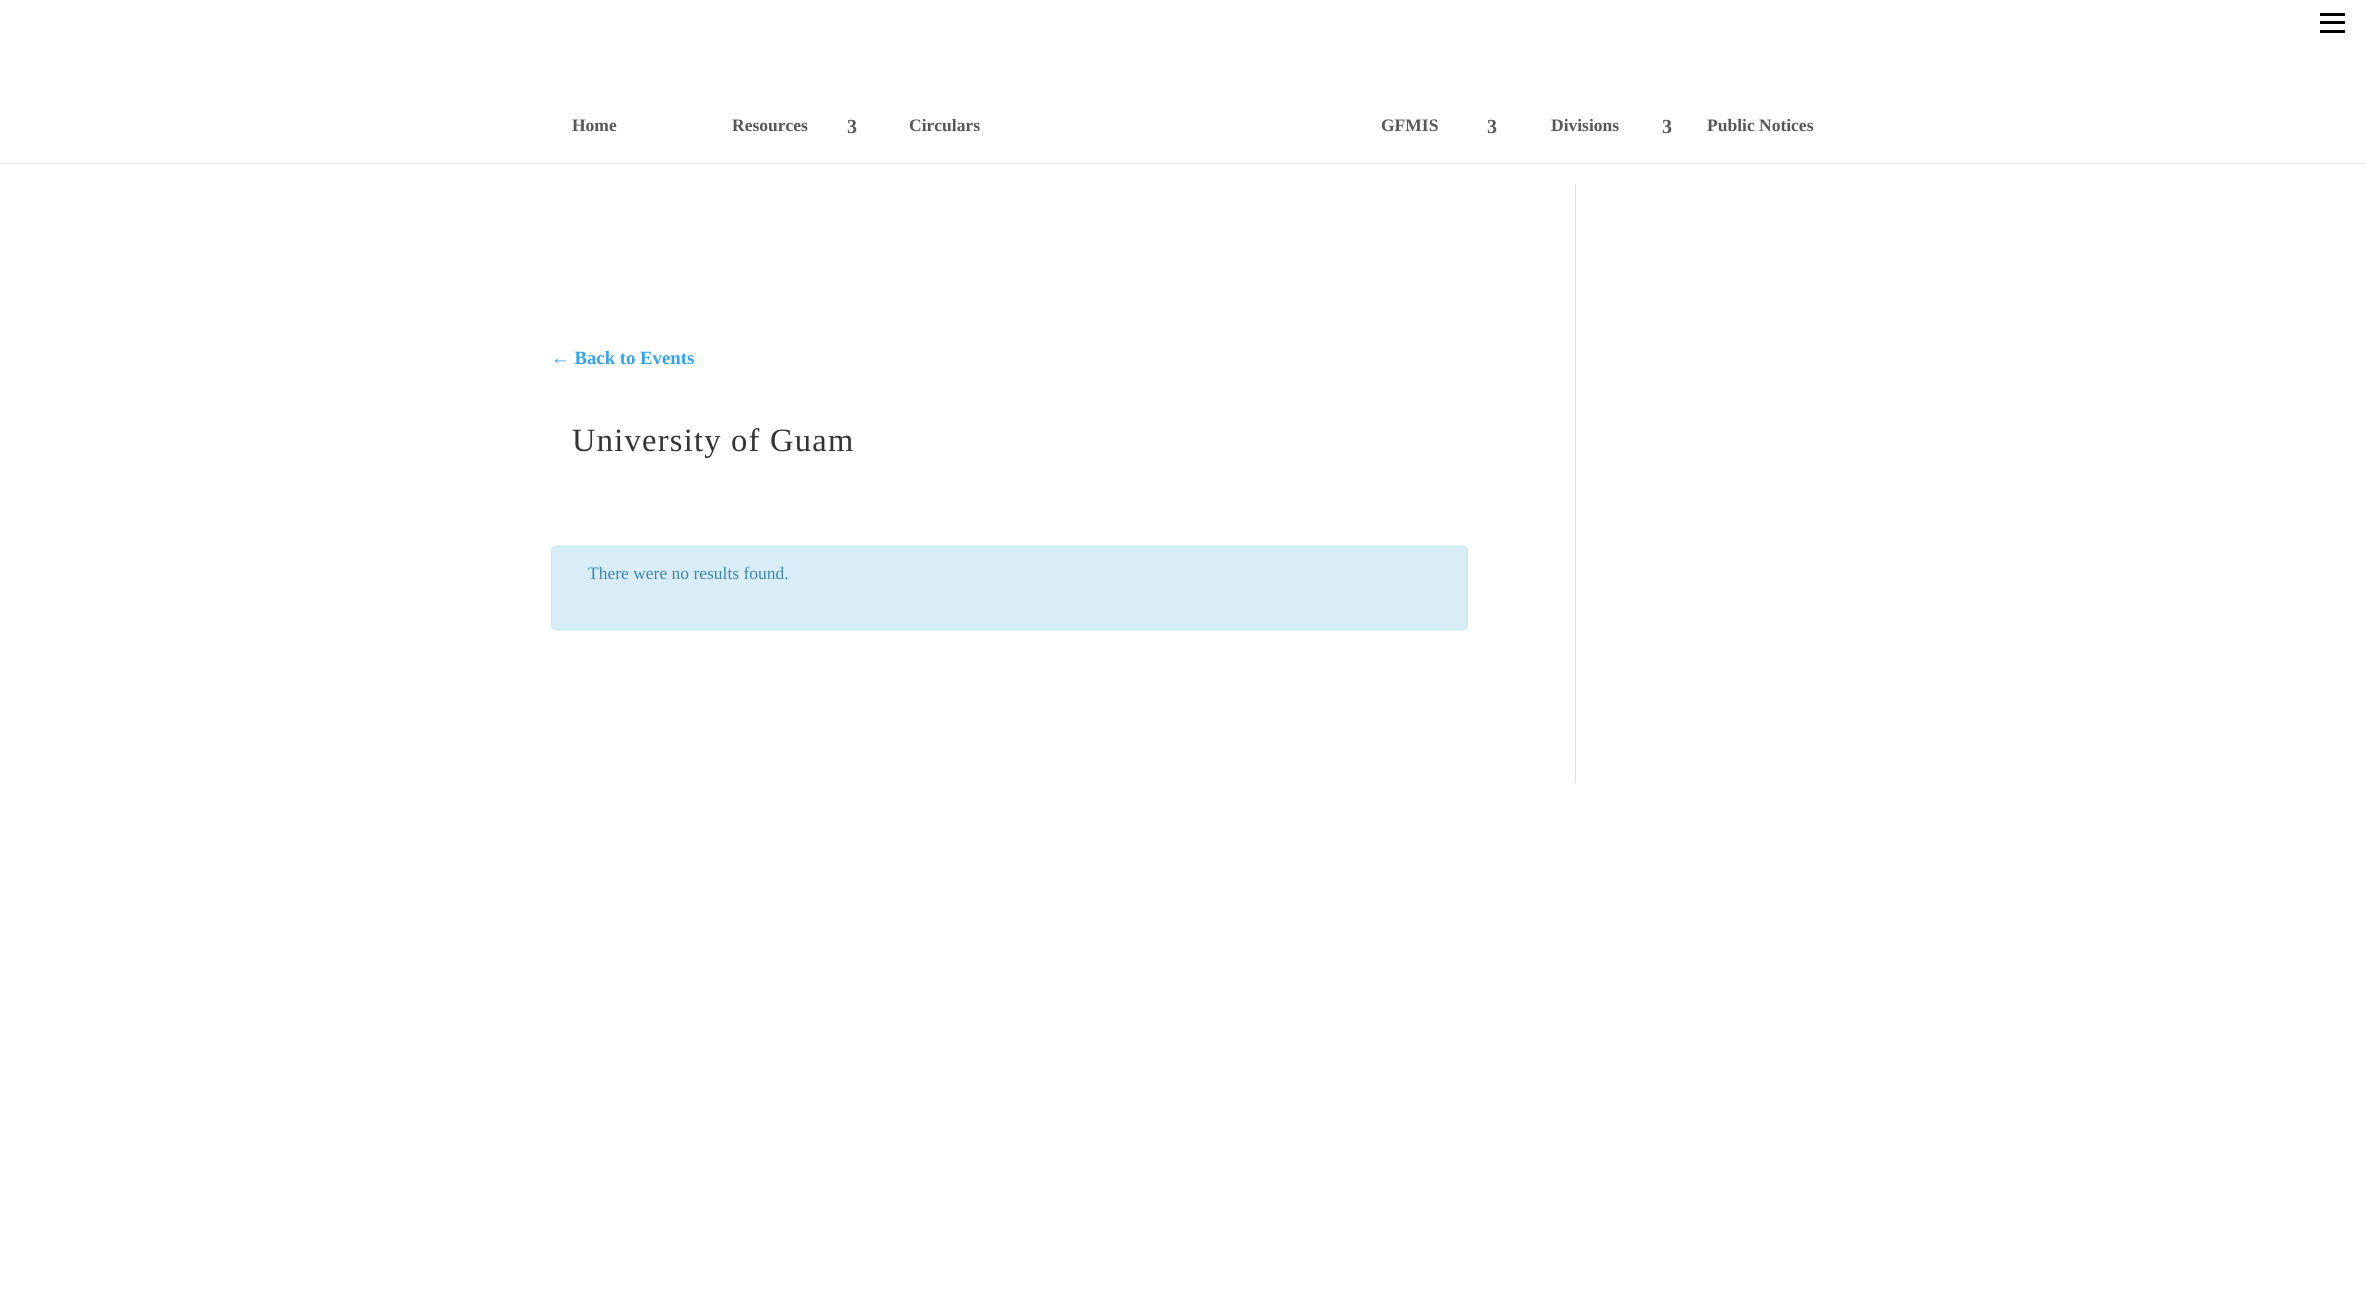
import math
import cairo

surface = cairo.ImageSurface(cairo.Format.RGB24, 2365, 1291)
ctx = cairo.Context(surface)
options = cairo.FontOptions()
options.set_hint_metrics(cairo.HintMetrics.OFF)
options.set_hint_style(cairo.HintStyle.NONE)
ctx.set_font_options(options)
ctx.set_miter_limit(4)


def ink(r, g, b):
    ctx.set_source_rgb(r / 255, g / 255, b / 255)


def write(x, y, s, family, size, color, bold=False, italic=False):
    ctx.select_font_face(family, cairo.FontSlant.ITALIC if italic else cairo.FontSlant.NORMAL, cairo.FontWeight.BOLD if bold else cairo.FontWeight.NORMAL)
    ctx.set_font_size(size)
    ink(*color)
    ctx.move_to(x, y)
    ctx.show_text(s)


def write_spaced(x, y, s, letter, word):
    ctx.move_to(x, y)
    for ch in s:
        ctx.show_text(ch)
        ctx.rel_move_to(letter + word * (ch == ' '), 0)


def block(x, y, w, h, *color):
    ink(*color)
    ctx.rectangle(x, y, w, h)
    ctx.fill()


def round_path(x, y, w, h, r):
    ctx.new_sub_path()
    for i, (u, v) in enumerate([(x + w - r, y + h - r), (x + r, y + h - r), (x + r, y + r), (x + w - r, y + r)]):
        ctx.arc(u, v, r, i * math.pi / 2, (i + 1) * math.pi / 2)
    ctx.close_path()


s1 = dict(family="Liberation Serif", size=17.5, color=(87, 87, 87), bold=True)
s2 = dict(family="Liberation Serif", size=20, color=(87, 87, 87), bold=True)
s3 = dict(family="Liberation Serif", size=18.75, color=(46, 163, 242), bold=True)
s4 = dict(family="Liberation Serif", size=17.5, color=(58, 135, 173))

ink(255, 255, 255)
ctx.paint()
block(2320, 13, 25, 3, 0, 0, 0)
block(2320, 21, 25, 3, 0, 0, 0)
block(2320, 30, 25, 3, 0, 0, 0)
block(0, 163, 2365, 1, 230, 230, 230)
write(572, 131, "Home", **s1)
write(732, 131, "Resources", **s1)
write(847, 133, "3", **s2)
write(909, 131, "Circulars", **s1)
write(1381, 131, "GFMIS", **s1)
write(1487, 133, "3", **s2)
write(1551, 131, "Divisions", **s1)
write(1662, 133, "3", **s2)
write(1707, 131, "Public Notices", **s1)
write(551, 364, "← Back to Events", **s3)
ctx.select_font_face("Liberation Serif")
ctx.set_font_size(32.5)
ink(51, 51, 51)
write_spaced(572, 451, "University of Guam", 1.25, 0)
ink(217, 237, 247)
round_path(551.5, 546.5, 916, 83, 4.5)
ctx.fill_preserve()
ink(188, 232, 241)
ctx.set_line_width(1)
ctx.stroke()
write(588, 579, "There were no results found.", **s4)
block(1575, 184, 1, 599, 226, 226, 226)
surface.write_to_png("screenshot.png")
